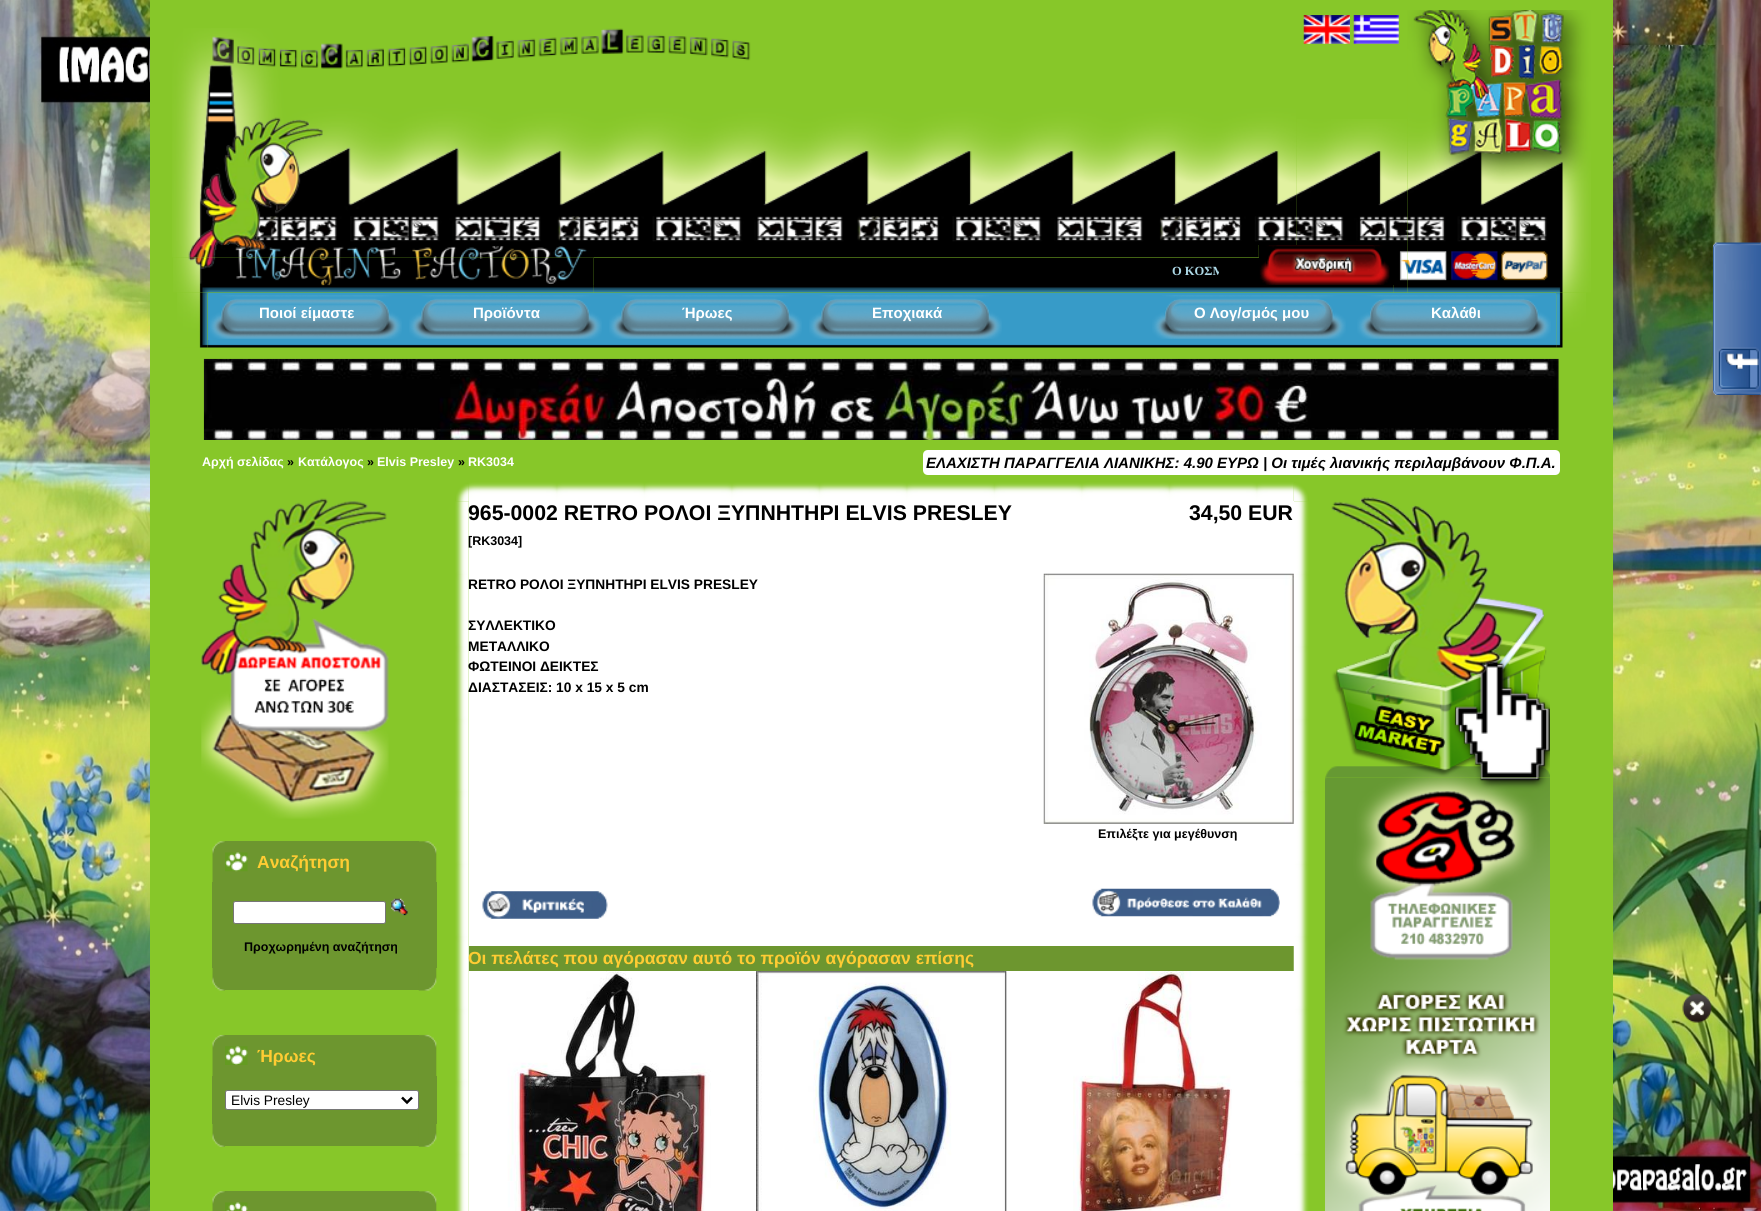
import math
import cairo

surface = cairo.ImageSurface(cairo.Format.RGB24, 1761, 1211)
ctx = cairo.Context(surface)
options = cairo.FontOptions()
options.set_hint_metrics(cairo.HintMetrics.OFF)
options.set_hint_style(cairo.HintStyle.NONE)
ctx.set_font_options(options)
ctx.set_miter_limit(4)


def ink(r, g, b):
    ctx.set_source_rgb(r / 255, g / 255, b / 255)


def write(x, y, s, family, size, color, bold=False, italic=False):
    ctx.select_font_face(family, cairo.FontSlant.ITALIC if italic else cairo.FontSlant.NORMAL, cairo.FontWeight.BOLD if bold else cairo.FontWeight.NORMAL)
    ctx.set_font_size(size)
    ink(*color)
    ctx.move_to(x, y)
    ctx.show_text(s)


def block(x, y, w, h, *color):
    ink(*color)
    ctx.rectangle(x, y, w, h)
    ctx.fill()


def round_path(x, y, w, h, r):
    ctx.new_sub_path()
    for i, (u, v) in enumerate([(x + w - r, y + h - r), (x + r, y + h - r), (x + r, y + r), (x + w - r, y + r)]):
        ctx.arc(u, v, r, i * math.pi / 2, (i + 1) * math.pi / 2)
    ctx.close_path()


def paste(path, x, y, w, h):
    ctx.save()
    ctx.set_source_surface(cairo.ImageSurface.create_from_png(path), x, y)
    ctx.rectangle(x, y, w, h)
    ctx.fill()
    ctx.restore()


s1 = dict(family="Liberation Serif", size=12.5, color=(173, 216, 230), bold=True)
s2 = dict(family="Liberation Sans", size=15, color=(255, 255, 255), bold=True)
s3 = dict(family="Liberation Sans", size=12.5, color=(255, 255, 255), bold=True)
s4 = dict(family="Liberation Sans", size=12.5, color=(0, 0, 0), bold=True)
s5 = dict(family="Liberation Sans", size=15, color=(0, 0, 0), bold=True, italic=True)
s6 = dict(family="Liberation Sans", size=17.5, color=(255, 204, 51), bold=True)
s7 = dict(family="Liberation Sans", size=13.75, color=(0, 0, 0))
s8 = dict(family="Liberation Sans", size=21.25, color=(0, 0, 0), bold=True)
s9 = dict(family="Liberation Sans", size=13.75, color=(0, 0, 0), bold=True)

ink(255, 255, 255)
ctx.paint()
paste("pic1.png", 0, 0, 1761, 1211)
block(150, 0, 1463, 1211, 135, 199, 41)
paste("pic2.png", 172, 28, 1125, 217)
paste("pic3.png", 1303, 15, 47, 29)
paste("pic4.png", 1353, 15, 46, 29)
paste("pic5.png", 1407, 10, 184, 283)
paste("pic6.png", 1296, 119, 112, 126)
paste("pic7.png", 172, 245, 1087, 13)
block(1390, 245, 4, 40, 0, 0, 0)
block(594, 258, 665, 27, 0, 0, 0)
paste("pic8.png", 1258, 245, 132, 40)
paste("pic9.png", 1393, 245, 15, 48)
paste("pic10.png", 173, 257, 421, 36)
ctx.save()
ctx.rectangle(594, 265, 625, 13)
ctx.clip()
write(1172, 275, "Ο ΚΟΣΜ", **s1)
ctx.restore()
paste("pic11.png", 593, 285, 801, 8)
paste("pic12.png", 177, 292, 31, 56)
block(208, 293, 1348, 47, 55, 155, 200)
paste("pic13.png", 209, 295, 193, 44)
write(259, 318, "Ποιοί είμαστε", **s2)
paste("pic14.png", 409, 295, 193, 44)
write(473, 318, "Προϊόντα", **s2)
paste("pic15.png", 609, 295, 193, 44)
write(682, 318, "Ήρωες", **s2)
paste("pic16.png", 809, 295, 193, 44)
write(872, 318, "Εποχιακά", **s2)
paste("pic17.png", 1152, 295, 194, 44)
write(1194, 318, "Ο Λογ/σμός μου", **s2)
paste("pic18.png", 1357, 295, 194, 44)
write(1431, 318, "Καλάθι", **s2)
paste("pic19.png", 1556, 292, 30, 56)
paste("pic20.png", 207, 340, 1350, 8)
paste("pic21.png", 203, 358, 1356, 82)
write(202, 466, "Αρχή σελίδας", **s3)
write(287, 466, "»", **s4)
write(298, 466, "Κατάλογος", **s3)
write(367, 466, "»", **s4)
write(377, 466, "Elvis Presley", **s3)
write(458, 466, "»", **s4)
write(468, 466, "RK3034", **s3)
ctx.new_path()
ctx.move_to(928, 450)
ctx.line_to(1259, 450)
ctx.line_to(1259, 475)
ctx.line_to(928, 475)
ctx.curve_to(925, 475, 923, 473, 923, 470)
ctx.line_to(923, 455)
ctx.curve_to(923, 452, 925, 450, 928, 450)
ctx.close_path()
ctx.fill()
ctx.new_path()
ctx.move_to(1259, 450)
ctx.line_to(1555, 450)
ctx.curve_to(1558, 450, 1560, 452, 1560, 455)
ctx.line_to(1560, 470)
ctx.curve_to(1560, 473, 1558, 475, 1555, 475)
ctx.line_to(1259, 475)
ctx.close_path()
ctx.fill()
write(926, 468, "ΕΛΑΧΙΣΤΗ ΠΑΡΑΓΓΕΛΙΑ ΛΙΑΝΙΚΗΣ: 4.90 ΕΥΡΩ | Οι τιμές λιανικής περιλαμβάνουν Φ.Π.Α.", **s5)
paste("pic22.png", 201, 498, 188, 321)
paste("pic23.png", 212, 841, 13, 41)
paste("pic24.png", 419, 841, 18, 41)
block(225, 841, 194, 149, 109, 150, 47)
paste("pic25.png", 225, 852, 23, 20)
write(257, 868, "Αναζήτηση", **s6)
block(212, 882, 13, 86, 109, 150, 47)
ink(255, 255, 255)
round_path(233.5, 901.5, 152, 22, 2)
ctx.fill_preserve()
ink(118, 118, 118)
ctx.set_line_width(1)
ctx.stroke()
paste("pic26.png", 391, 898, 17, 18)
write(244, 951, "Προχωρημένη αναζήτηση", **s4)
block(419, 882, 18, 86, 109, 150, 47)
paste("pic27.png", 212, 968, 13, 23)
paste("pic28.png", 418, 968, 19, 23)
paste("pic29.png", 212, 1034, 13, 42)
paste("pic30.png", 419, 1034, 18, 42)
block(225, 1035, 194, 41, 109, 150, 47)
paste("pic31.png", 225, 1046, 23, 19)
write(257, 1062, "Ήρωες", **s6)
block(212, 1076, 225, 48, 109, 150, 47)
ink(255, 255, 255)
round_path(225.5, 1090.5, 193, 19, 2)
ctx.fill_preserve()
ink(118, 118, 118)
ctx.stroke()
ctx.new_path()
ctx.move_to(402, 1097.5)
ctx.line_to(407, 1102.5)
ctx.line_to(412, 1097.5)
ink(0, 0, 0)
ctx.set_line_width(2.5)
ctx.stroke()
write(231, 1105, "Elvis Presley", **s7)
paste("pic32.png", 212, 1124, 13, 23)
block(225, 1124, 194, 22, 109, 150, 47)
paste("pic33.png", 418, 1124, 19, 23)
paste("pic34.png", 212, 1191, 13, 20)
paste("pic35.png", 419, 1191, 18, 20)
block(225, 1191, 194, 20, 109, 150, 47)
paste("pic36.png", 225, 1202, 23, 9)
paste("pic38.png", 468, 482, 826, 20)
paste("pic40.png", 455, 501, 14, 710)
paste("pic37.png", 456, 484, 13, 18)
block(469, 501, 825, 710, 255, 255, 255)
block(469, 946, 825, 25, 109, 150, 47)
paste("pic47.png", 1293, 501, 16, 710)
paste("pic39.png", 1293, 483, 15, 19)
write(468, 520, "965-0002 RETRO ΡΟΛΟΙ ΞΥΠΝΗΤΗΡΙ ELVIS PRESLEY", **s8)
write(468, 545, "[RK3034]", **s4)
write(1189, 520, "34,50 EUR", **s8)
write(468, 589, "RETRO ΡΟΛΟΙ ΞΥΠΝΗΤΗΡΙ ELVIS PRESLEY", **s9)
write(468, 630, "ΣΥΛΛΕΚΤΙΚΟ", **s9)
write(468, 651, "ΜΕΤΑΛΛΙΚΟ", **s9)
write(468, 671, "ΦΩΤΕΙΝΟΙ ΔΕΙΚΤΕΣ", **s9)
write(468, 692, "ΔΙΑΣΤΑΣΕΙΣ: 10 x 15 x 5 cm", **s9)
paste("pic41.png", 1043, 573, 251, 251)
write(1098, 838, "Επιλέξτε για μεγέθυνση", **s4)
paste("pic42.png", 482, 891, 126, 28)
paste("pic43.png", 1092, 888, 188, 29)
write(468, 964, "Οι πελάτες που αγόρασαν αυτό το προϊόν αγόρασαν επίσης", **s6)
paste("pic44.png", 468, 971, 243, 240)
paste("pic45.png", 756, 971, 251, 240)
paste("pic46.png", 1073, 971, 159, 240)
paste("pic48.png", 1325, 497, 225, 281)
paste("pic49.png", 1325, 777, 225, 198)
paste("pic50.png", 1325, 975, 225, 236)
paste("pic51.png", 1682, 993, 30, 30)
paste("pic52.png", 1713, 242, 48, 153)
surface.write_to_png("screenshot.png")
